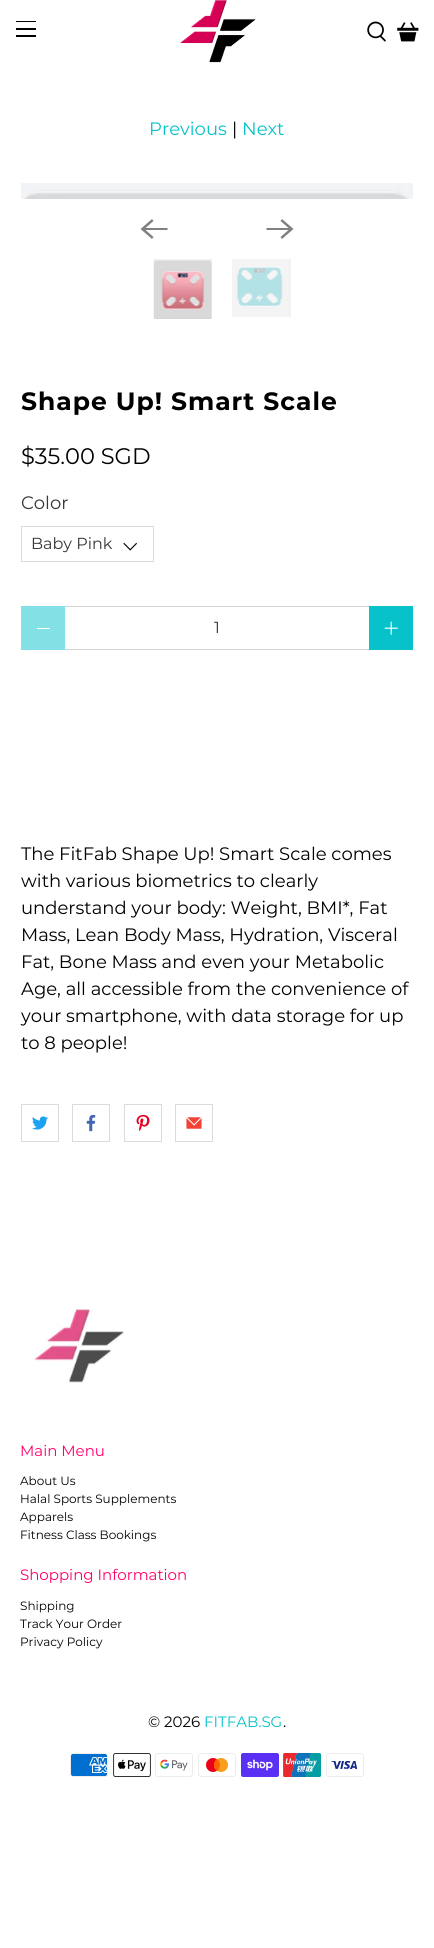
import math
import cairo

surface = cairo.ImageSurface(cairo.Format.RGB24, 434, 1948)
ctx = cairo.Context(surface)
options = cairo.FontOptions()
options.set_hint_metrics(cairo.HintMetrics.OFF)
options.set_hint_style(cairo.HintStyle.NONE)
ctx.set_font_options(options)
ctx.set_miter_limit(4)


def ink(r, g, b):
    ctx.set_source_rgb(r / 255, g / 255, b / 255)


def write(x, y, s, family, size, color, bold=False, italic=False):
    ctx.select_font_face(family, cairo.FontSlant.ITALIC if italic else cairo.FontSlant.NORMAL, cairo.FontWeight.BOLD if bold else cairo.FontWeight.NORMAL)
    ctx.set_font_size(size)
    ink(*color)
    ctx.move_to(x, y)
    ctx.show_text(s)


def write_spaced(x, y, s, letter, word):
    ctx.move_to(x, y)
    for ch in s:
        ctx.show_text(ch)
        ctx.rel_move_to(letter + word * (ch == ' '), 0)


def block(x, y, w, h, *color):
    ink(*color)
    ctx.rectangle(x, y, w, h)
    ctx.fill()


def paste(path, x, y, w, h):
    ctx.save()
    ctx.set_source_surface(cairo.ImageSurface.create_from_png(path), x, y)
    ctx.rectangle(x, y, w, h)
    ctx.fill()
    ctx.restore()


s1 = dict(family="Montserrat", size=18, color=(7, 194, 202))
s2 = dict(family="Montserrat", size=18, color=(0, 0, 0))
s3 = dict(family="Montserrat", size=22.5, color=(0, 0, 0))
s4 = dict(family="Montserrat", size=18, color=(54, 54, 54))
s5 = dict(family="Montserrat", size=16, color=(54, 54, 54))
s6 = dict(family="Montserrat", size=15, color=(255, 0, 109))
s7 = dict(family="Montserrat", size=12, color=(0, 0, 0))
s8 = dict(family="Montserrat", size=15, color=(0, 0, 0))
s9 = dict(family="Montserrat", size=15, color=(7, 194, 202))

ink(255, 255, 255)
ctx.paint()
block(16, 21, 20, 1, 0, 0, 0)
block(16, 28, 20, 2, 0, 0, 0)
block(16, 35, 20, 2, 0, 0, 0)
paste("pic1.png", 180, 0, 76, 63)
paste("pic2.png", 367, 21, 19, 21)
paste("pic3.png", 397, 22, 22, 20)
write(149, 135, "Previous", **s1)
write(232, 135, "|", **s2)
write(242, 135, "Next", **s1)
paste("pic4.png", 21, 183, 392, 16)
ink(128, 128, 128)
ctx.new_path()
ctx.move_to(167.5, 228)
ctx.line_to(145.5, 228)
ctx.line_to(153.5, 221)
ctx.line_to(152, 219)
ctx.line_to(140.5, 229)
ctx.line_to(152, 239)
ctx.line_to(153.5, 237)
ctx.line_to(145.5, 230)
ctx.line_to(167.5, 230)
ctx.close_path()
ctx.fill()
ctx.new_path()
ctx.move_to(266.5, 230)
ctx.line_to(288.5, 230)
ctx.line_to(280.5, 237)
ctx.line_to(282, 239)
ctx.line_to(293.5, 229)
ctx.line_to(282, 219)
ctx.line_to(280.5, 221)
ctx.line_to(288.5, 228)
ctx.line_to(266.5, 228)
ctx.close_path()
ctx.fill()
paste("pic5.png", 153, 259, 59, 60)
paste("pic6.png", 232, 259, 59, 58)
ctx.select_font_face("Montserrat", cairo.FontSlant.NORMAL, cairo.FontWeight.BOLD)
ctx.set_font_size(25)
ink(0, 0, 0)
write_spaced(21, 410, "Shape Up! Smart Scale", 1, 0)
write(21, 464, "$35.00 SGD", **s3)
write(21, 509, "Color", **s4)
ctx.rectangle(21.5, 526.5, 132, 35)
ink(219, 219, 219)
ctx.set_line_width(1)
ctx.stroke()
write(31, 549, "Baby Pink", **s5)
paste("pic7.png", 123, 542, 14, 9)
block(21, 606, 44, 44, 131, 225, 229)
block(37, 628, 13, 1, 255, 255, 255)
block(65, 606, 304, 1, 211, 211, 211)
block(65, 649, 304, 1, 211, 211, 211)
write(214, 633, "1", **s5)
block(369, 606, 44, 44, 7, 194, 202)
paste("pic8.png", 384, 621, 14, 14)
write(21, 860, "The FitFab Shape Up! Smart Scale comes", **s2)
write(21, 887, "with various biometrics to clearly", **s2)
write(21, 914, "understand your body: Weight, BMI*, Fat", **s2)
write(21, 941, "Mass, Lean Body Mass, Hydration, Visceral", **s2)
write(21, 968, "Fat, Bone Mass and even your Metabolic", **s2)
write(21, 995, "Age, all accessible from the convenience of", **s2)
write(21, 1022, "your smartphone, with data storage for up", **s2)
write(21, 1049, "to 8 people!", **s2)
ctx.rectangle(21.5, 1104.5, 37, 37)
ink(219, 219, 219)
ctx.stroke()
paste("pic9.png", 32, 1116, 16, 14)
ctx.rectangle(72.5, 1104.5, 37, 37)
ctx.stroke()
paste("pic10.png", 86, 1114, 10, 18)
ctx.rectangle(124.5, 1104.5, 37, 37)
ctx.stroke()
paste("pic11.png", 136, 1114, 14, 17)
ctx.rectangle(175.5, 1104.5, 37, 37)
ctx.stroke()
paste("pic12.png", 186, 1117, 16, 12)
paste("pic13.png", 34, 1309, 90, 74)
write(20, 1456, "Main Menu", **s6)
write(20, 1485, "About Us", **s7)
write(20, 1503, "Halal Sports Supplements", **s7)
write(20, 1521, "Apparels", **s7)
write(20, 1539, "Fitness Class Bookings", **s7)
write(20, 1580, "Shopping Information", **s6)
write(20, 1610, "Shipping", **s7)
write(20, 1628, "Track Your Order", **s7)
write(20, 1646, "Privacy Policy", **s7)
write(148, 1727, "© 2026", **s8)
write(204, 1727, "FITFAB.SG", **s9)
write(283, 1727, ".", **s8)
paste("pic14.png", 70, 1753, 38, 24)
paste("pic15.png", 113, 1753, 38, 24)
paste("pic16.png", 155, 1753, 38, 24)
paste("pic17.png", 198, 1753, 38, 24)
paste("pic18.png", 241, 1753, 38, 24)
paste("pic19.png", 283, 1753, 38, 24)
paste("pic20.png", 326, 1753, 38, 24)
surface.write_to_png("screenshot.png")
